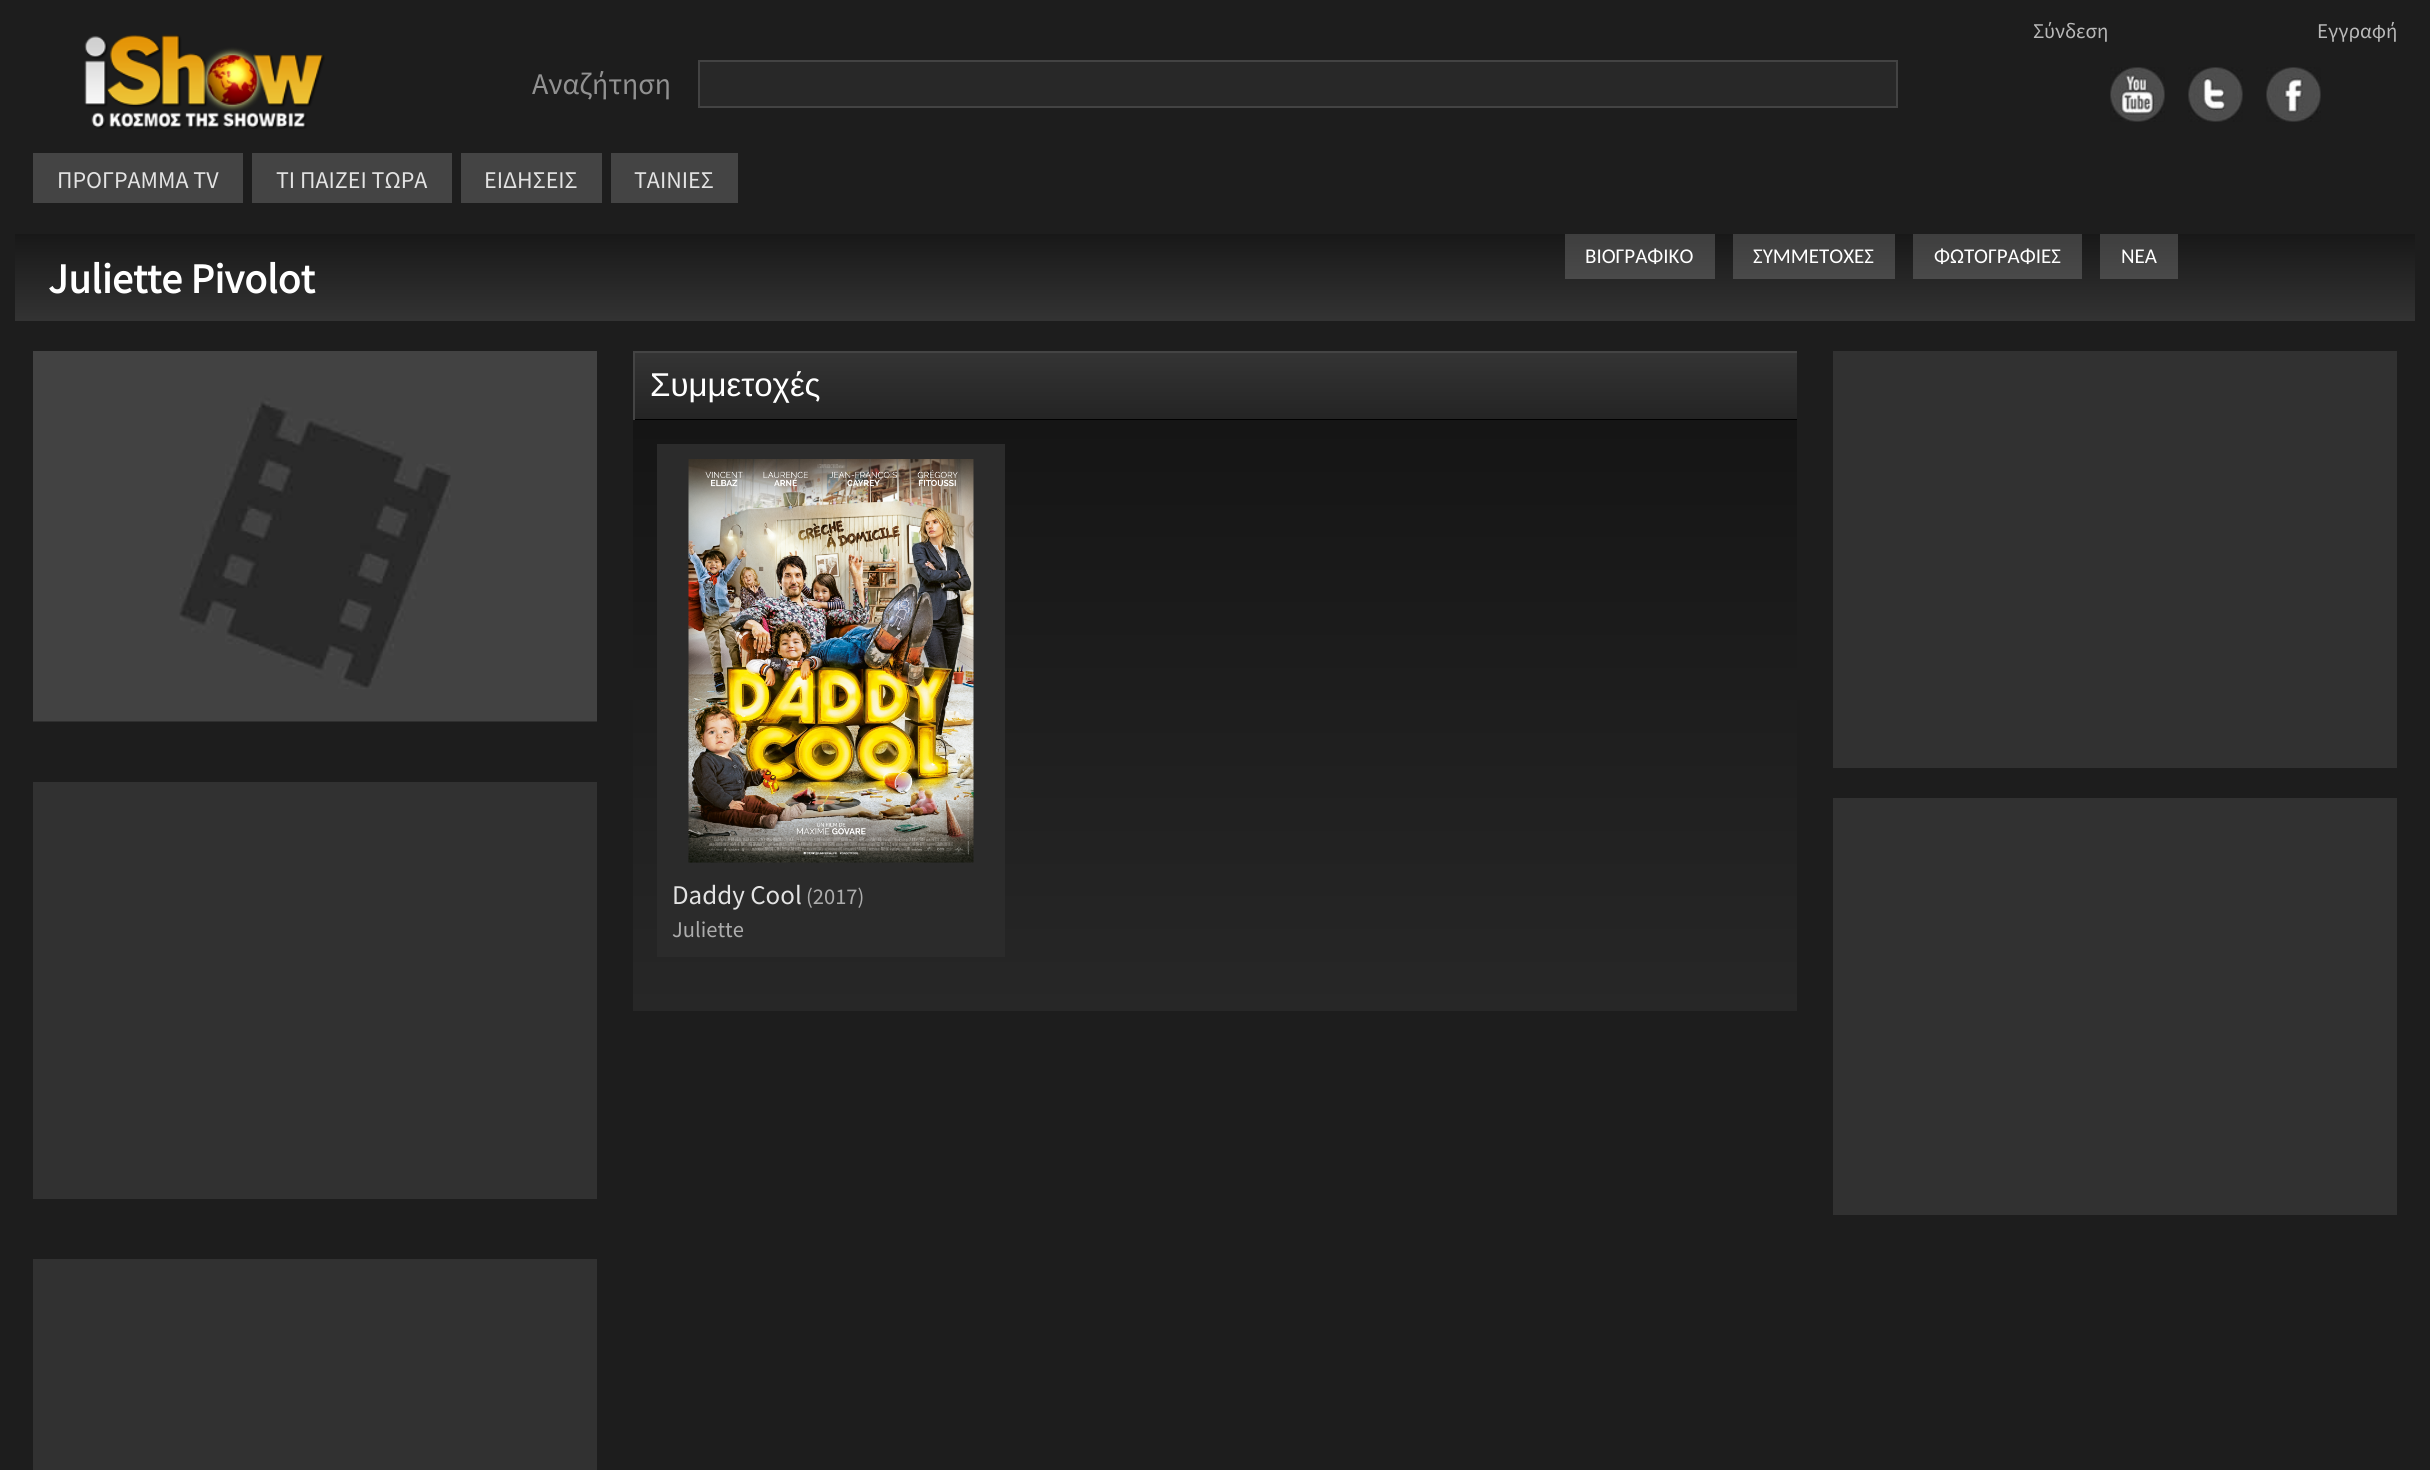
import math
import cairo

surface = cairo.ImageSurface(cairo.Format.RGB24, 2430, 1470)
ctx = cairo.Context(surface)
options = cairo.FontOptions()
options.set_hint_metrics(cairo.HintMetrics.OFF)
options.set_hint_style(cairo.HintStyle.NONE)
ctx.set_font_options(options)
ctx.set_miter_limit(4)


def ink(r, g, b):
    ctx.set_source_rgb(r / 255, g / 255, b / 255)


def write(x, y, s, family, size, color, bold=False, italic=False):
    ctx.select_font_face(family, cairo.FontSlant.ITALIC if italic else cairo.FontSlant.NORMAL, cairo.FontWeight.BOLD if bold else cairo.FontWeight.NORMAL)
    ctx.set_font_size(size)
    ink(*color)
    ctx.move_to(x, y)
    ctx.show_text(s)


def block(x, y, w, h, *color):
    ink(*color)
    ctx.rectangle(x, y, w, h)
    ctx.fill()


def paste(path, x, y, w, h):
    ctx.save()
    ctx.set_source_surface(cairo.ImageSurface.create_from_png(path), x, y)
    ctx.rectangle(x, y, w, h)
    ctx.fill()
    ctx.restore()


s1 = dict(family="Source Sans Pro", size=21, color=(185, 185, 185))
s2 = dict(family="Source Sans Pro", size=30, color=(146, 146, 146))
s3 = dict(family="Source Sans Pro", size=24, color=(227, 227, 227))
s4 = dict(family="Carlito", size=21, color=(255, 255, 255))
s5 = dict(family="Source Sans Pro", size=42, color=(255, 255, 255), bold=True)
s6 = dict(family="Liberation Sans", size=33, color=(255, 255, 255))
s7 = dict(family="Source Sans Pro", size=27, color=(227, 227, 227))
s8 = dict(family="Source Sans Pro", size=22.5, color=(173, 173, 173))

ink(29, 29, 29)
ctx.paint()
write(2033, 38, "Σύνδεση", **s1)
write(2317, 38, "Εγγραφή", **s1)
paste("pic1.png", 2110, 67, 55, 55)
paste("pic2.png", 2188, 67, 55, 55)
paste("pic3.png", 2266, 67, 55, 55)
paste("pic4.png", 84, 34, 241, 95)
write(532, 94, "Αναζήτηση", **s2)
ink(40, 40, 40)
ctx.rectangle(699, 61, 1198, 46)
ctx.fill_preserve()
ink(67, 67, 67)
ctx.stroke()
block(33, 153, 210, 50, 68, 68, 68)
write(57, 188, "ΠΡΟΓΡΑΜΜΑ TV", **s3)
block(252, 153, 200, 50, 68, 68, 68)
write(276, 188, "ΤΙ ΠΑΙΖΕΙ ΤΩΡΑ", **s3)
block(461, 153, 141, 50, 68, 68, 68)
write(484, 188, "ΕΙΔΗΣΕΙΣ", **s3)
block(611, 153, 127, 50, 68, 68, 68)
write(634, 188, "ΤΑΙΝΙΕΣ", **s3)
gradient = cairo.LinearGradient(1215, 234, 1215, 321)
gradient.add_color_stop_rgba(0, 0.094, 0.094, 0.094, 1)
gradient.add_color_stop_rgba(1, 0.2, 0.2, 0.2, 1)
ctx.set_source(gradient)
ctx.rectangle(15, 234, 2400, 87)
ctx.fill()
gradient = cairo.LinearGradient(1640, 234, 1640, 279)
gradient.add_color_stop_rgba(0, 0.243, 0.243, 0.243, 1)
gradient.add_color_stop_rgba(1, 0.29, 0.29, 0.29, 1)
ctx.set_source(gradient)
ctx.rectangle(1565, 234, 150, 45)
ctx.fill()
write(1585, 263, "ΒΙΟΓΡΑΦΙΚΟ", **s4)
gradient = cairo.LinearGradient(1814, 234, 1814, 279)
gradient.add_color_stop_rgba(0, 0.243, 0.243, 0.243, 1)
gradient.add_color_stop_rgba(1, 0.29, 0.29, 0.29, 1)
ctx.set_source(gradient)
ctx.rectangle(1733, 234, 162, 45)
ctx.fill()
write(1753, 263, "ΣΥΜΜΕΤΟΧΕΣ", **s4)
gradient = cairo.LinearGradient(1997, 234, 1997, 279)
gradient.add_color_stop_rgba(0, 0.243, 0.243, 0.243, 1)
gradient.add_color_stop_rgba(1, 0.29, 0.29, 0.29, 1)
ctx.set_source(gradient)
ctx.rectangle(1913, 234, 169, 45)
ctx.fill()
write(1934, 263, "ΦΩΤΟΓΡΑΦΙΕΣ", **s4)
gradient = cairo.LinearGradient(2139, 234, 2139, 279)
gradient.add_color_stop_rgba(0, 0.243, 0.243, 0.243, 1)
gradient.add_color_stop_rgba(1, 0.29, 0.29, 0.29, 1)
ctx.set_source(gradient)
ctx.rectangle(2100, 234, 78, 45)
ctx.fill()
write(2121, 263, "ΝΕΑ", **s4)
write(48, 293, "Juliette Pivolot", **s5)
paste("pic5.png", 33, 351, 564, 371)
block(33, 782, 564, 417, 49, 49, 49)
block(33, 1259, 564, 211, 49, 49, 49)
gradient = cairo.LinearGradient(1216, 352, 1216, 419)
gradient.add_color_stop_rgba(0, 0.204, 0.204, 0.204, 1)
gradient.add_color_stop_rgba(1, 0.141, 0.141, 0.141, 1)
ctx.set_source(gradient)
ctx.rectangle(635, 353, 1162, 66)
ctx.fill()
block(633, 351, 1164, 2, 68, 68, 68)
block(633, 419, 1164, 1, 0, 0, 0)
block(633, 351, 2, 69, 68, 68, 68)
write(650, 396, "Συμμετοχές", **s6)
gradient = cairo.LinearGradient(1215, 420, 1215, 1011)
gradient.add_color_stop_rgba(0, 0.082, 0.082, 0.082, 1)
gradient.add_color_stop_rgba(1, 0.153, 0.153, 0.153, 1)
ctx.set_source(gradient)
ctx.rectangle(633, 420, 1164, 591)
ctx.fill()
block(657, 444, 348, 513, 43, 43, 43)
paste("pic6.png", 688, 459, 286, 404)
write(672, 904, "Daddy Cool", **s7)
write(806, 904, "(2017)", **s8)
write(672, 937, "Juliette", **s8)
block(1833, 351, 564, 417, 49, 49, 49)
block(1833, 798, 564, 417, 49, 49, 49)
surface.write_to_png("screenshot.png")
